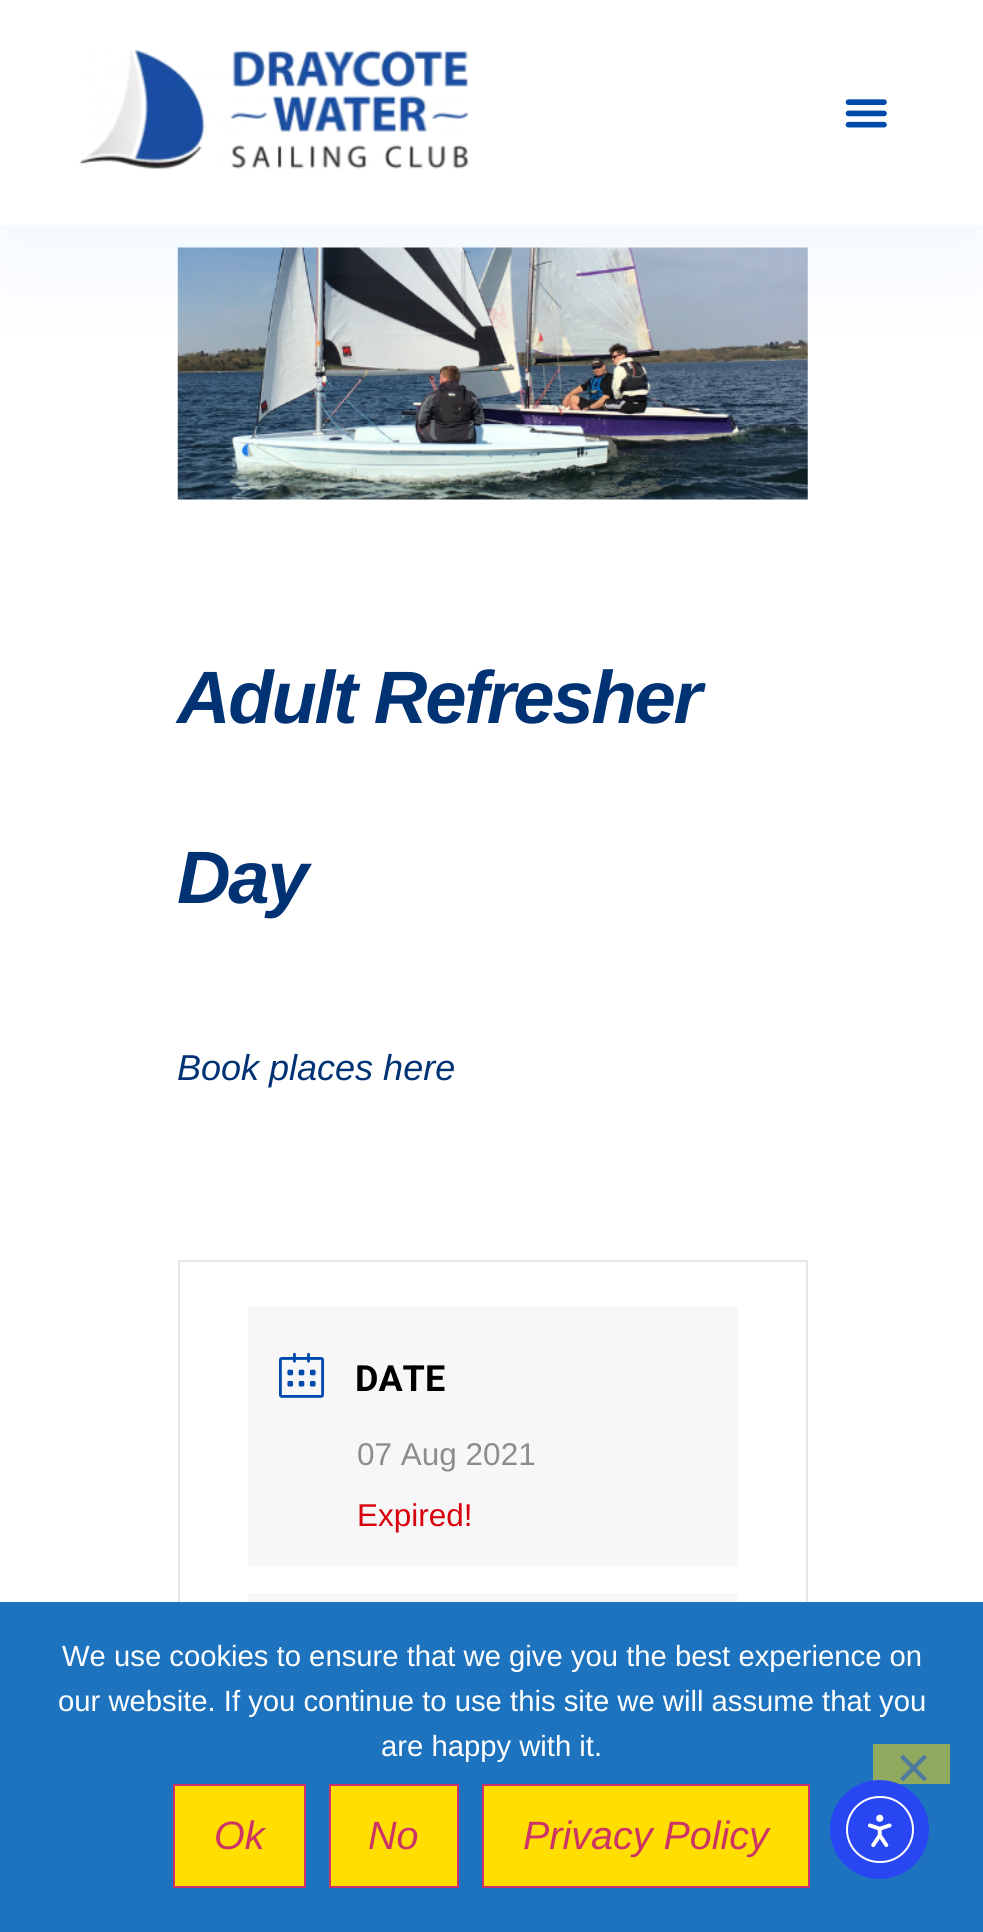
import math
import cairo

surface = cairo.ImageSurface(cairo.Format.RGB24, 983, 1932)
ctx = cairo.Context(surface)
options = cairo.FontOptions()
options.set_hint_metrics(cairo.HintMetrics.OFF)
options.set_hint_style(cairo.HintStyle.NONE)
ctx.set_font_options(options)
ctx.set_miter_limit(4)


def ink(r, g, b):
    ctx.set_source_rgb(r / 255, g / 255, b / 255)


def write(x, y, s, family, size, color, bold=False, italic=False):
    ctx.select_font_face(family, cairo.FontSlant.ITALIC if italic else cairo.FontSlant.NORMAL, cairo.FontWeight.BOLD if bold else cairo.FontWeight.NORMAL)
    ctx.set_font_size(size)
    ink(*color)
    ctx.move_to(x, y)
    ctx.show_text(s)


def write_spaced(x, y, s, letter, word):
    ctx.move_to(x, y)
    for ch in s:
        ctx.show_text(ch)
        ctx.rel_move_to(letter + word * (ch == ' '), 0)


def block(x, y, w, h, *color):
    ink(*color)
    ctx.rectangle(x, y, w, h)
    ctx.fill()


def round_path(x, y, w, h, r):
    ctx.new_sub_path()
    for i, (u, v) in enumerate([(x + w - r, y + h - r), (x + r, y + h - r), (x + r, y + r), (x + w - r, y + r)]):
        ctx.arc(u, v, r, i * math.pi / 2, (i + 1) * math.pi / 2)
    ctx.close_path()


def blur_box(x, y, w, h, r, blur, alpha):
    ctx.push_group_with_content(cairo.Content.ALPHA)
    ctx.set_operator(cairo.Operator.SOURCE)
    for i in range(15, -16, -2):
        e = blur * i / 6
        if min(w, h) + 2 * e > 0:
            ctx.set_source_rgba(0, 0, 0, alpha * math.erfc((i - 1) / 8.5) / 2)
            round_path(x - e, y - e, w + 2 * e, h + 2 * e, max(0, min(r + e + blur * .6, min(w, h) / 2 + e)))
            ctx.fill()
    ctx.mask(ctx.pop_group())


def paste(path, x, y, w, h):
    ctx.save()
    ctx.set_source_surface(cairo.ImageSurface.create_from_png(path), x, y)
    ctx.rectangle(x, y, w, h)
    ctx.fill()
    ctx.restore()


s1 = dict(family="Liberation Sans", size=36, color=(0, 50, 116), italic=True)
s2 = dict(family="Roboto", size=36, color=(0, 0, 0), bold=True)
s3 = dict(family="Liberation Sans", size=31.5, color=(141, 141, 141))
s4 = dict(family="Liberation Sans", size=31.5, color=(216, 0, 12))
s5 = dict(family="Liberation Sans", size=29.25, color=(255, 255, 255))
s6 = dict(family="Liberation Sans", size=39.5, color=(204, 51, 102), italic=True)

ink(255, 255, 255)
ctx.paint()
paste("pic3.png", 177, 247, 631, 253)
ctx.save()
ctx.rectangle(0, 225, 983, 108)
ctx.clip()
ink(155, 200, 253)
blur_box(0, 11, 983, 225, 0, 75.5, 0.2)
ctx.restore()
paste("pic1.png", 79, 49, 390, 120)
paste("pic2.png", 845, 99, 42, 29)
ctx.select_font_face("Liberation Sans", cairo.FontSlant.ITALIC, cairo.FontWeight.BOLD)
ctx.set_font_size(74.25)
ink(0, 50, 116)
write_spaced(177, 723, "Adult Refresher", -2.25, 0)
write_spaced(177, 903, "Day", -2.25, 0)
write(177, 1080, "Book places here", **s1)
ctx.rectangle(179, 1261, 628, 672)
ink(230, 230, 230)
ctx.stroke()
block(248, 1307, 490, 259, 247, 247, 247)
paste("pic4.png", 279, 1352, 45, 46)
write(355, 1391, "DATE", **s2)
write(357, 1465, "07 Aug 2021", **s3)
write(357, 1526, "Expired!", **s4)
block(248, 1593, 490, 9, 247, 247, 247)
block(0, 1602, 983, 330, 30, 115, 190)
write(62, 1666, "We use cookies to ensure that we give you the best experience on", **s5)
write(58, 1711, "our website. If you continue to use this site we will assume that you", **s5)
write(381, 1756, "are happy with it.", **s5)
block(873, 1744, 77, 40, 143, 169, 95)
ink(79, 122, 159)
ctx.new_path()
ctx.move_to(924, 1754.5)
ctx.line_to(927, 1757.5)
ctx.line_to(903, 1781.5)
ctx.line_to(900, 1778.5)
ctx.close_path()
ctx.fill()
ctx.new_path()
ctx.move_to(900, 1757.5)
ctx.line_to(903, 1754.5)
ctx.line_to(927, 1778.5)
ctx.line_to(924, 1781.5)
ctx.close_path()
ctx.fill()
ink(255, 222, 0)
ctx.rectangle(174, 1785, 131, 102)
ctx.fill_preserve()
ink(204, 51, 102)
ctx.stroke()
write(214, 1849, "Ok", **s6)
ink(255, 222, 0)
ctx.rectangle(330, 1785, 128, 102)
ctx.fill_preserve()
ink(204, 51, 102)
ctx.stroke()
write(368, 1849, "No", **s6)
ink(255, 222, 0)
ctx.rectangle(483, 1785, 326, 102)
ctx.fill_preserve()
ink(204, 51, 102)
ctx.stroke()
write(523, 1849, "Privacy Policy", **s6)
ink(40, 71, 243)
ctx.new_path()
ctx.arc(879.5, 1829.5, 49.5, 0, 2 * math.pi)
ctx.fill()
round_path(847, 1797, 66, 65, 32.5)
ink(255, 255, 255)
ctx.stroke()
paste("pic5.png", 868, 1814, 24, 34)
surface.write_to_png("screenshot.png")
